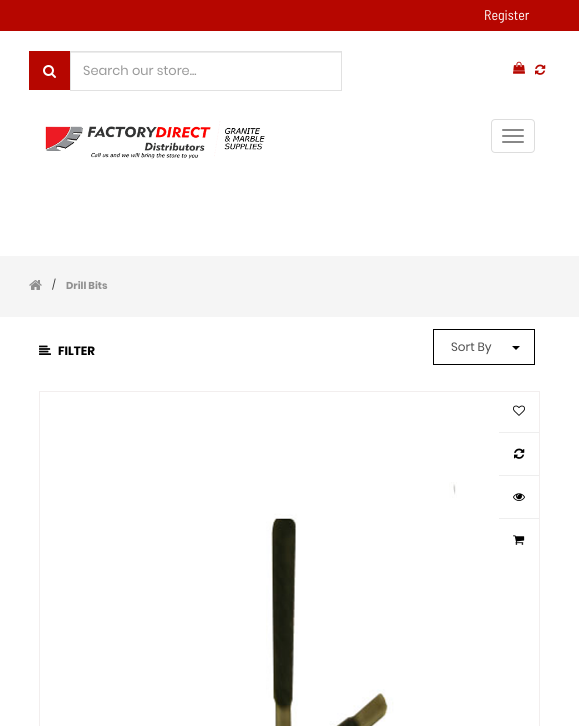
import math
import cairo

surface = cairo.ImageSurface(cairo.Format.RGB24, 579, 726)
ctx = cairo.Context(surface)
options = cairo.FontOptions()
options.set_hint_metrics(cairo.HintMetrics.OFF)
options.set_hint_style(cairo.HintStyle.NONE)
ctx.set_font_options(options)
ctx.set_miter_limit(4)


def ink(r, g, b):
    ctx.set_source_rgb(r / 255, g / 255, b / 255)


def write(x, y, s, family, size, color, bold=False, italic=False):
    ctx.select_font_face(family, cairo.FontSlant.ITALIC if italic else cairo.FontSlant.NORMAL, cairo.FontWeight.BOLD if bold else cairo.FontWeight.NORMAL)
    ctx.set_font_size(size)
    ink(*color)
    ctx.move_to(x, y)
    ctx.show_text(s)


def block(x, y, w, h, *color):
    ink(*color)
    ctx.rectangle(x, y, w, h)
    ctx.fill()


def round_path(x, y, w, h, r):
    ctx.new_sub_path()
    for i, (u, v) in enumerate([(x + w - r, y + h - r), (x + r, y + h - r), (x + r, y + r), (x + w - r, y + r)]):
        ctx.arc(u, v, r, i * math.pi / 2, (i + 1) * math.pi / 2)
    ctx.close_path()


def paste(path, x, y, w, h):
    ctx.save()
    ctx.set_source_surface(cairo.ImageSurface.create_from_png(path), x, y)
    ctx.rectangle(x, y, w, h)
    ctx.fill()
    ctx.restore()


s1 = dict(family="Barlow Semi Condensed", size=14, color=(255, 255, 255))
s2 = dict(family="Poppins", size=13, color=(153, 153, 153))
s3 = dict(family="Poppins", size=10, color=(51, 51, 51))
s4 = dict(family="Poppins", size=10, color=(144, 144, 144), bold=True)
s5 = dict(family="Poppins", size=12, color=(0, 0, 0), bold=True)
s6 = dict(family="Poppins", size=12, color=(80, 80, 80))

ink(255, 255, 255)
ctx.paint()
block(0, 0, 579, 31, 182, 6, 0)
write(484, 20, "Register", **s1)
block(29, 51, 41, 39, 182, 6, 0)
paste("pic1.png", 43, 65, 13, 13)
block(71, 52, 270, 1, 236, 236, 236)
ctx.rectangle(70.5, 51.5, 271, 39)
ink(225, 225, 225)
ctx.set_line_width(1)
ctx.stroke()
write(83, 75, "Search our store...", **s2)
paste("pic2.png", 513, 61, 12, 13)
paste("pic3.png", 535, 64, 11, 11)
paste("pic4.png", 45, 121, 220, 38)
round_path(491.5, 119.5, 43, 33, 3.5)
ink(221, 221, 221)
ctx.stroke()
ink(136, 136, 136)
round_path(502, 129, 22, 2, 1)
ctx.fill()
round_path(502, 135, 22, 2, 1)
ctx.fill()
round_path(502, 141, 22, 2, 1)
ctx.fill()
block(0, 256, 579, 61, 245, 245, 245)
paste("pic5.png", 29, 280, 13, 10)
write(52, 288, "/", **s3)
write(66, 289, "Drill Bits", **s4)
paste("pic6.png", 39, 345, 12, 10)
write(58, 355, "FILTER", **s5)
ctx.rectangle(433.5, 329.5, 101, 35)
ctx.stroke()
write(451, 351, "Sort By", **s6)
ink(0, 0, 0)
ctx.new_path()
ctx.move_to(512, 346)
ctx.line_to(520, 346)
ctx.line_to(516, 350)
ctx.close_path()
ctx.fill()
ctx.rectangle(39.5, 391.5, 500, 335)
ink(242, 238, 238)
ctx.stroke()
paste("pic7.png", 266, 482, 191, 244)
paste("pic8.png", 513, 405, 12, 11)
block(499, 432, 40, 1, 238, 238, 238)
paste("pic9.png", 514, 448, 11, 11)
block(499, 475, 40, 1, 238, 238, 238)
paste("pic10.png", 513, 493, 12, 8)
block(499, 518, 40, 1, 238, 238, 238)
paste("pic11.png", 513, 535, 12, 10)
surface.write_to_png("screenshot.png")
